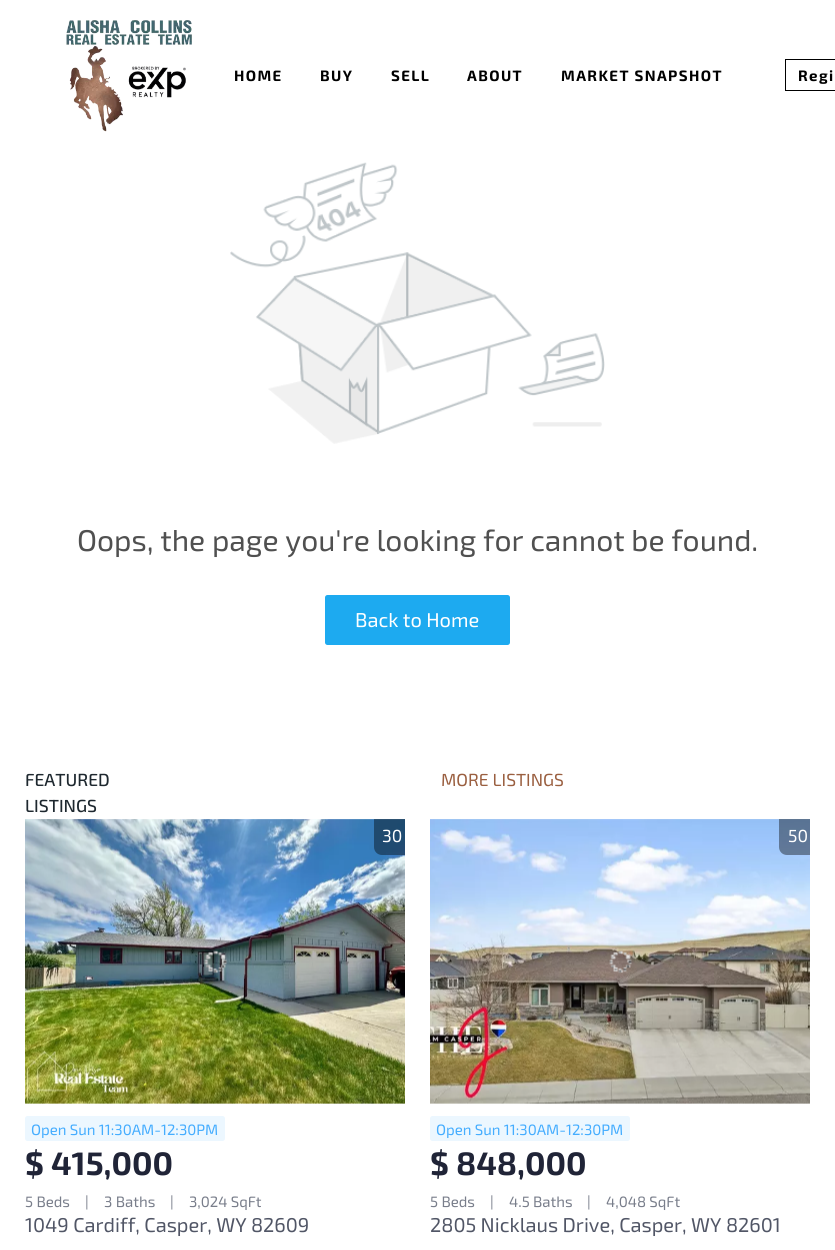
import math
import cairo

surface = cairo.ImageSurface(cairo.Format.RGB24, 835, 1250)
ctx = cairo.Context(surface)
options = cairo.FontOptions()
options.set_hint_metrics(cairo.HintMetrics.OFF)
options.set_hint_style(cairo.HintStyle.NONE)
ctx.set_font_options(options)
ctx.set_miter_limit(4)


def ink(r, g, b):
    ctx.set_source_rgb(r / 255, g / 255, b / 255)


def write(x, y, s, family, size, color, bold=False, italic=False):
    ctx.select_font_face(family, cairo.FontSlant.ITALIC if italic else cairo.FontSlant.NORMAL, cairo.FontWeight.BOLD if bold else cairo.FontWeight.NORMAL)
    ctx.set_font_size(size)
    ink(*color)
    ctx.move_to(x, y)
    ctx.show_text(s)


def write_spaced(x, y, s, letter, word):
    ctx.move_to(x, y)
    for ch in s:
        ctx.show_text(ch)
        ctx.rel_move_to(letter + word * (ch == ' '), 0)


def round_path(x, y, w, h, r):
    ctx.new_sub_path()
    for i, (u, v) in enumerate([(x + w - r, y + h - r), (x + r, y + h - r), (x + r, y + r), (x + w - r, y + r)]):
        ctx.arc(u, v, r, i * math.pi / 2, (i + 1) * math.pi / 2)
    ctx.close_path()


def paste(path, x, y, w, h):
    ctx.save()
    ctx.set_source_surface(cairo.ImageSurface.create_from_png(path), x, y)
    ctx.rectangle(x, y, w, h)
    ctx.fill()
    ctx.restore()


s1 = dict(family="Exo 2", size=30, color=(80, 80, 80))
s2 = dict(family="Exo 2", size=20, color=(255, 255, 255))
s3 = dict(family="Exo 2 Medium", size=17.5, color=(30, 40, 47))
s4 = dict(family="Exo 2", size=17.5, color=(154, 95, 64))
s5 = dict(family="Exo 2", size=17.5, color=(255, 255, 255))
s6 = dict(family="Exo 2", size=15, color=(69, 173, 255))
s7 = dict(family="Exo 2", size=32.5, color=(32, 36, 55), bold=True)
s8 = dict(family="Exo 2", size=15, color=(121, 126, 139))
s9 = dict(family="Exo 2", size=20, color=(81, 86, 102))

ink(255, 255, 255)
ctx.paint()
paste("pic1.png", 66, 20, 126, 112)
ctx.select_font_face("Exo 2", cairo.FontSlant.NORMAL, cairo.FontWeight.BOLD)
ctx.set_font_size(15)
ink(0, 0, 0)
write_spaced(234, 81, "HOME", 1.4, 0)
write_spaced(320, 81, "BUY", 1.4, 0)
write_spaced(391, 81, "SELL", 1.4, 0)
write_spaced(467, 81, "ABOUT", 1.4, 0)
write_spaced(561, 81, "MARKET SNAPSHOT", 1.4, 0)
ctx.rectangle(785.5, 59.5, 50, 31)
ctx.set_line_width(1)
ctx.stroke()
write_spaced(798, 81, "Regi", 1.4, 0)
paste("pic2.png", 230, 162, 375, 282)
write(77, 551, "Oops, the page you're looking for cannot be found.", **s1)
ink(29, 170, 240)
round_path(325, 595, 185, 50, 2.5)
ctx.fill()
write(355, 627, "Back to Home", **s2)
write(25, 786, "FEATURED", **s3)
write(25, 812, "LISTINGS", **s3)
write(441, 786, "MORE LISTINGS", **s4)
paste("pic3.png", 25, 819, 380, 285)
paste("pic4.png", 204, 950, 23, 24)
ctx.set_source_rgba(0, 0, 0, 0.4)
ctx.new_path()
ctx.move_to(374, 819)
ctx.line_to(405, 819)
ctx.line_to(405, 855)
ctx.line_to(382, 855)
ctx.curve_to(377.5, 855, 374, 851.5, 374, 847)
ctx.close_path()
ctx.fill()
write(382, 842, "30", **s5)
ink(236, 247, 255)
round_path(25, 1116, 200, 25, 2.5)
ctx.fill()
write(31, 1135, "Open Sun 11:30AM-12:30PM", **s6)
write(25, 1175, "$ 415,000", **s7)
write(25, 1207, "5 Beds", **s8)
write(85, 1207, "|", **s8)
write(104, 1207, "3 Baths", **s8)
write(170, 1207, "|", **s8)
write(189, 1207, "3,024 SqFt", **s8)
write(25, 1232, "1049 Cardiff, Casper, WY 82609", **s9)
paste("pic5.png", 430, 819, 380, 285)
paste("pic6.png", 609, 950, 23, 24)
ctx.set_source_rgba(0, 0, 0, 0.4)
ctx.new_path()
ctx.move_to(779, 819)
ctx.line_to(810, 819)
ctx.line_to(810, 855)
ctx.line_to(787, 855)
ctx.curve_to(782.5, 855, 779, 851.5, 779, 847)
ctx.close_path()
ctx.fill()
write(788, 842, "50", **s5)
ink(236, 247, 255)
round_path(430, 1116, 200, 25, 2.5)
ctx.fill()
write(436, 1135, "Open Sun 11:30AM-12:30PM", **s6)
write(430, 1175, "$ 848,000", **s7)
write(430, 1207, "5 Beds", **s8)
write(490, 1207, "|", **s8)
write(509, 1207, "4.5 Baths", **s8)
write(587, 1207, "|", **s8)
write(606, 1207, "4,048 SqFt", **s8)
write(430, 1232, "2805 Nicklaus Drive, Casper, WY 82601", **s9)
surface.write_to_png("screenshot.png")
